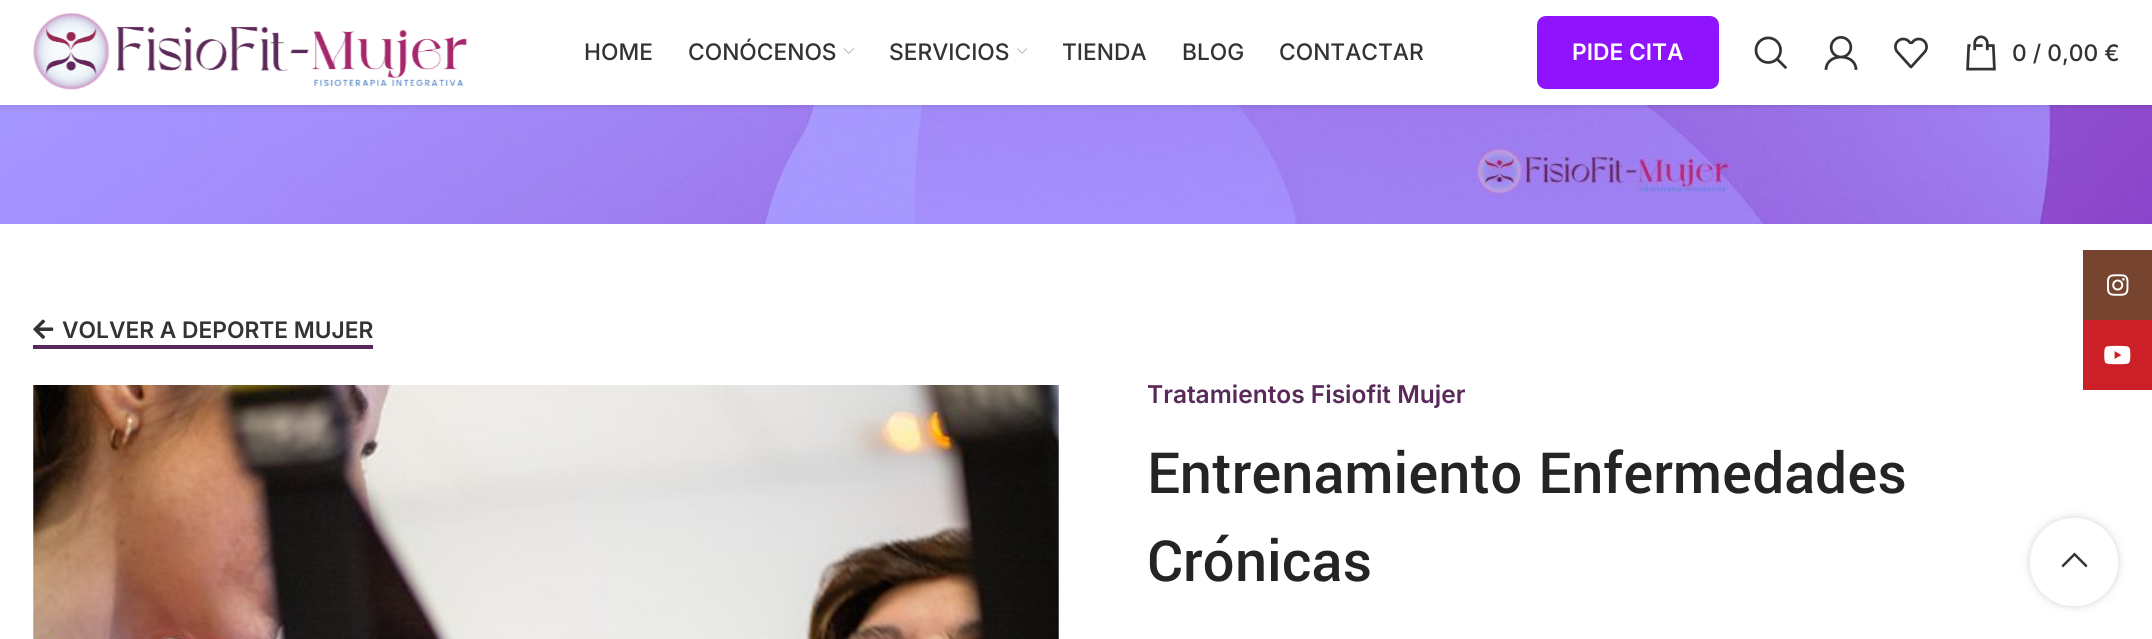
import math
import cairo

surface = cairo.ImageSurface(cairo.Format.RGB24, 2152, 639)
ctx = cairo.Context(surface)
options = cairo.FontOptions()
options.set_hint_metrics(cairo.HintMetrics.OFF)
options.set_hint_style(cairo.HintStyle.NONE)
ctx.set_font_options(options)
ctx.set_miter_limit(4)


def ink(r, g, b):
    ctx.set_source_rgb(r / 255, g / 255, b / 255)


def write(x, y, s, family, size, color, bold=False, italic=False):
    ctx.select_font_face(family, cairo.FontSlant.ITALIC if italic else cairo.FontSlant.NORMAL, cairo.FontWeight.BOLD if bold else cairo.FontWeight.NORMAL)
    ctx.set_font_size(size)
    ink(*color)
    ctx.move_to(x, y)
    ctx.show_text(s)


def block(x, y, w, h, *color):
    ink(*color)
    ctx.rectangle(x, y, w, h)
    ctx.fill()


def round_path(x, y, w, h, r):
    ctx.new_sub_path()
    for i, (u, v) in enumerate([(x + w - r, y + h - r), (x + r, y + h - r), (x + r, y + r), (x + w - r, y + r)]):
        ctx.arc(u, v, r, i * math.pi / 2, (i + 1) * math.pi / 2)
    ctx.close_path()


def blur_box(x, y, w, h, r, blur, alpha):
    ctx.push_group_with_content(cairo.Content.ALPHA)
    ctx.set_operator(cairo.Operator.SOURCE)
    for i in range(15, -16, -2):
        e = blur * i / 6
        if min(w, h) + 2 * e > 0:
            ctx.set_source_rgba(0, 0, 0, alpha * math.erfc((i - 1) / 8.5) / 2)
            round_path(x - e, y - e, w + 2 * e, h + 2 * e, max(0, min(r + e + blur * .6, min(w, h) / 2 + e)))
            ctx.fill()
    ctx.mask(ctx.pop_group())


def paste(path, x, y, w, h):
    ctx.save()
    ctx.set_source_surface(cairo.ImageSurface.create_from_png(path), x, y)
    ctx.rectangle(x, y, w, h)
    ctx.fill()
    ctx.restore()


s1 = dict(family="Inter Medium", size=22.75, color=(51, 51, 51))
s2 = dict(family="Inter SemiBold", size=22.75, color=(255, 255, 255))
s3 = dict(family="Inter SemiBold", size=22.75, color=(51, 51, 51))
s4 = dict(family="Inter SemiBold", size=24.5, color=(88, 42, 89))
s5 = dict(family="Yantramanav Medium", size=63, color=(36, 36, 36))

ink(255, 255, 255)
ctx.paint()
paste("pic8.png", 0, 105, 2152, 119)
ink(0, 0, 0)
blur_box(0, 2, 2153, 105, 0, 2.5, 0.1)
block(0, 0, 2152, 105, 255, 255, 255)
paste("pic1.png", 33, 13, 435, 77)
write(584, 60, "HOME", **s1)
write(688, 60, "CONÓCENOS", **s1)
paste("pic2.png", 843, 48, 11, 6)
write(889, 60, "SERVICIOS", **s1)
paste("pic3.png", 1017, 48, 11, 6)
write(1062, 60, "TIENDA", **s1)
write(1182, 60, "BLOG", **s1)
write(1279, 60, "CONTACTAR", **s1)
ink(144, 19, 254)
round_path(1537, 16, 182, 73, 9)
ctx.fill()
write(1572, 60, "PIDE CITA", **s2)
paste("pic4.png", 1754, 36, 34, 34)
paste("pic5.png", 1824, 36, 34, 34)
paste("pic6.png", 1894, 37, 34, 32)
paste("pic7.png", 1966, 35, 30, 36)
write(2012, 61, "0 / 0,00 €", **s1)
block(33, 345, 340, 4, 88, 42, 89)
paste("pic9.png", 33, 319, 21, 20)
write(62, 338, "VOLVER A DEPORTE MUJER", **s3)
paste("pic10.png", 33, 385, 1026, 254)
write(1147, 403, "Tratamientos Fisiofit Mujer", **s4)
write(1147, 493, "Entrenamiento Enfermedades", **s5)
write(1147, 581, "Crónicas", **s5)
block(2083, 250, 69, 70, 119, 68, 48)
paste("pic11.png", 2107, 274, 22, 22)
block(2083, 320, 69, 70, 203, 32, 39)
paste("pic12.png", 2104, 345, 27, 20)
ctx.save()
ctx.set_fill_rule(cairo.FillRule.EVEN_ODD)
ctx.new_path()
ctx.move_to(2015, 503)
ctx.line_to(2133, 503)
ctx.line_to(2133, 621)
ctx.line_to(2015, 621)
ctx.close_path()
ctx.move_to(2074, 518)
ctx.curve_to(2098.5, 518, 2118, 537.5, 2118, 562)
ctx.curve_to(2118, 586.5, 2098.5, 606, 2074, 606)
ctx.curve_to(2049.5, 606, 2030, 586.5, 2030, 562)
ctx.curve_to(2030, 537.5, 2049.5, 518, 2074, 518)
ctx.close_path()
ctx.clip()
ink(0, 0, 0)
blur_box(2030, 518, 88, 88, 44, 4.5, 0.17)
ctx.restore()
ctx.set_source_rgba(1, 1, 1, 0.9)
ctx.arc(2074, 562, 44, 0, 2 * math.pi)
ctx.fill()
ink(51, 51, 51)
ctx.new_path()
ctx.move_to(2086, 567.5)
ctx.line_to(2087.5, 565.5)
ctx.line_to(2074.5, 552.5)
ctx.line_to(2061.5, 565.5)
ctx.line_to(2063, 567.5)
ctx.line_to(2074.5, 556)
ctx.close_path()
ctx.fill()
surface.write_to_png("screenshot.png")
